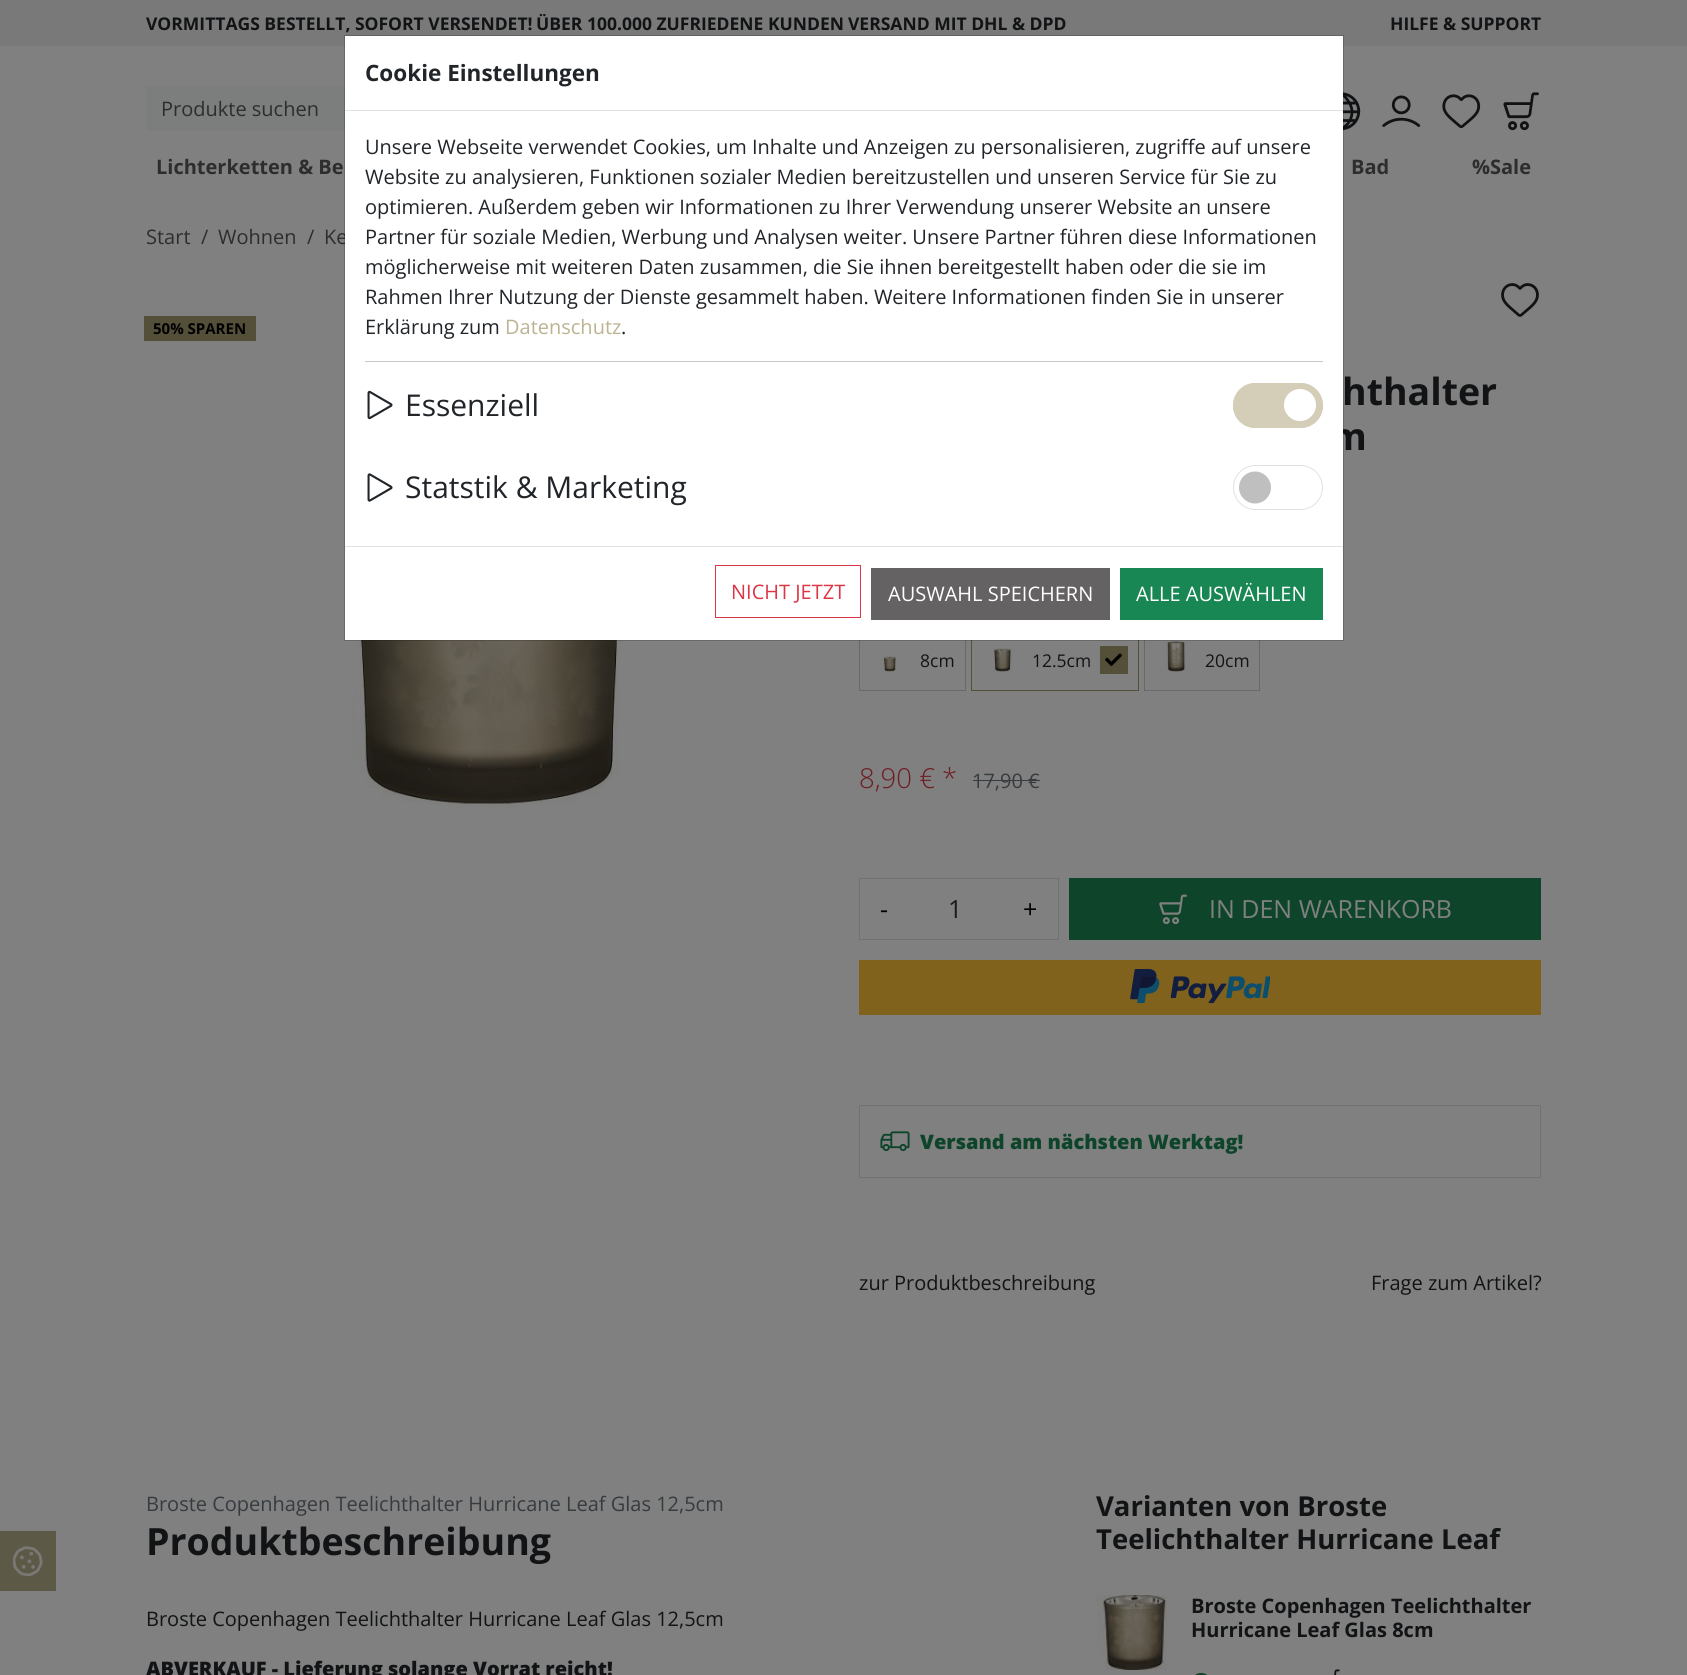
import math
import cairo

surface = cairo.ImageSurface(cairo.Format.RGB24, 1687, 1675)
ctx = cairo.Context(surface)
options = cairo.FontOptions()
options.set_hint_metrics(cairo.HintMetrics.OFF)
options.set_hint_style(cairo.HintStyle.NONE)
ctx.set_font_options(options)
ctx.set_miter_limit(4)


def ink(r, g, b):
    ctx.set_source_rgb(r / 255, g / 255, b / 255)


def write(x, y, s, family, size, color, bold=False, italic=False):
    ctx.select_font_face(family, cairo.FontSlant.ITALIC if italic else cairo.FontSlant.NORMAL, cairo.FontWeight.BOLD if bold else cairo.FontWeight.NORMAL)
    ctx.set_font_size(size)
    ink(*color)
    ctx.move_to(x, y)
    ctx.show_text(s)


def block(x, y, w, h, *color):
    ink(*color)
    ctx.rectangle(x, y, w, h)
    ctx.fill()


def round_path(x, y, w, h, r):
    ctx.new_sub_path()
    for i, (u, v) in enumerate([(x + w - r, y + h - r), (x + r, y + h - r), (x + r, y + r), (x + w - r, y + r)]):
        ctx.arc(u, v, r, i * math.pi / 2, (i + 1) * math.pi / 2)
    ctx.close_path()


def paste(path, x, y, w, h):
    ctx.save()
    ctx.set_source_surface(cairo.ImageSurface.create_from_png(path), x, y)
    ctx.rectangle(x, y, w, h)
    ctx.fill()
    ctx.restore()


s1 = dict(family="Open Sans", size=17.5, color=(17, 19, 21), bold=True)
s2 = dict(family="Open Sans", size=20, color=(45, 45, 45))
s3 = dict(family="Open Sans", size=37.5, color=(17, 19, 21), bold=True)
s4 = dict(family="Open Sans", size=22.5, color=(33, 37, 41), bold=True)
s5 = dict(family="Open Sans", size=20, color=(33, 37, 41))
s6 = dict(family="Open Sans", size=20, color=(187, 179, 145))
s7 = dict(family="Open Sans", size=30, color=(33, 37, 41))
s8 = dict(family="Open Sans", size=20, color=(220, 53, 69))
s9 = dict(family="Open Sans", size=20, color=(255, 255, 255))
s10 = dict(family="Open Sans", size=20, color=(45, 45, 45), bold=True)
s11 = dict(family="Open Sans", size=15, color=(0, 0, 0), bold=True)
s12 = dict(family="Open Sans", size=17.5, color=(17, 19, 21))
s13 = dict(family="Open Sans Light", size=27.5, color=(110, 27, 35))
s14 = dict(family="Open Sans", size=20, color=(54, 59, 63))
s15 = dict(family="Open Sans", size=25, color=(0, 0, 0))
s16 = dict(family="Open Sans", size=25, color=(26, 26, 26))
s17 = dict(family="Open Sans", size=25, color=(128, 128, 128))
s18 = dict(family="Open Sans ExtraBold", size=20, color=(13, 68, 42))
s19 = dict(family="Open Sans", size=20, color=(17, 19, 21))
s20 = dict(family="Open Sans ExtraBold", size=20, color=(17, 19, 21))
s21 = dict(family="Open Sans", size=27.5, color=(17, 19, 21), bold=True)
s22 = dict(family="Open Sans", size=20, color=(17, 19, 21), bold=True)

ink(128, 128, 128)
ctx.paint()
block(0, 0, 1687, 46, 121, 121, 121)
write(146, 30, "VORMITTAGS BESTELLT, SOFORT VERSENDET!", **s1)
write(536, 30, "ÜBER 100.000 ZUFRIEDENE KUNDEN", **s1)
write(848, 30, "VERSAND MIT DHL & DPD", **s1)
write(1390, 30, "HILFE & SUPPORT", **s1)
write(324, 244, "Ke", **s2)
write(1330, 450, "m", **s3)
ctx.rectangle(859.5, 629.5, 106, 61)
ink(105, 105, 105)
ctx.set_line_width(1)
ctx.stroke()
ctx.rectangle(971.5, 629.5, 167, 61)
ink(84, 79, 57)
ctx.stroke()
ctx.rectangle(1144.5, 629.5, 115, 61)
ink(105, 105, 105)
ctx.stroke()
block(345, 36, 998, 604, 255, 255, 255)
block(146, 86, 199, 45, 124, 125, 125)
paste("pic3.png", 1343, 92, 18, 38)
paste("pic7.png", 345, 640, 288, 169)
paste("pic12.png", 1166, 640, 20, 32)
ctx.rectangle(344.5, 35.5, 999, 605)
ctx.set_source_rgba(0, 0, 0, 0.18)
ctx.stroke()
block(345, 110, 998, 1, 222, 226, 230)
write(365, 81, "Cookie Einstellungen", **s4)
write(365, 154, "Unsere Webseite verwendet Cookies, um Inhalte und Anzeigen zu personalisieren, zugriffe auf unsere", **s5)
write(365, 184, "Website zu analysieren, Funktionen sozialer Medien bereitzustellen und unseren Service für Sie zu", **s5)
write(365, 214, "optimieren. Außerdem geben wir Informationen zu Ihrer Verwendung unserer Website an unsere", **s5)
write(365, 244, "Partner für soziale Medien, Werbung und Analysen weiter. Unsere Partner führen diese Informationen", **s5)
write(365, 274, "möglicherweise mit weiteren Daten zusammen, die Sie ihnen bereitgestellt haben oder die sie im", **s5)
write(365, 304, "Rahmen Ihrer Nutzung der Dienste gesammelt haben. Weitere Informationen finden Sie in unserer", **s5)
write(365, 334, "Erklärung zum", **s5)
write(505, 334, "Datenschutz", **s6)
write(621, 334, ".", **s5)
block(365, 361, 958, 1, 200, 201, 202)
paste("pic1.png", 367, 390, 26, 30)
write(405, 416, "Essenziell", **s7)
ink(212, 206, 184)
round_path(1233, 383, 90, 45, 22.5)
ctx.fill()
ink(255, 255, 255)
ctx.arc(1300, 405, 16, 0, 2 * math.pi)
ctx.fill()
round_path(1233.5, 383.5, 89, 44, 22)
ink(212, 206, 184)
ctx.stroke()
paste("pic2.png", 367, 473, 26, 29)
write(405, 498, "Statstik & Marketing", **s7)
ink(191, 191, 191)
ctx.new_path()
ctx.arc(1255, 487.5, 16, 0, 2 * math.pi)
ctx.fill()
round_path(1233.5, 465.5, 89, 44, 22)
ink(222, 226, 230)
ctx.stroke()
block(345, 546, 998, 1, 222, 226, 230)
ctx.rectangle(715.5, 565.5, 145, 52)
ink(220, 53, 69)
ctx.stroke()
write(731, 599, "NICHT JETZT", **s8)
block(871, 568, 239, 52, 101, 98, 99)
write(888, 601, "AUSWAHL SPEICHERN", **s9)
block(1120, 568, 203, 52, 25, 135, 84)
write(1136, 601, "ALLE AUSWÄHLEN", **s9)
write(161, 116, "Produkte suchen", **s2)
paste("pic4.png", 1382, 95, 39, 32)
paste("pic5.png", 1442, 94, 39, 35)
paste("pic6.png", 1503, 92, 36, 39)
write(156, 174, "Lichterketten & Be", **s10)
write(1351, 174, "Bad", **s10)
write(1472, 174, "%Sale", **s10)
write(146, 244, "Start", **s2)
write(201, 244, "/", **s2)
write(218, 244, "Wohnen", **s2)
write(307, 244, "/", **s2)
block(144, 316, 112, 25, 84, 79, 57)
write(153, 334, "50% SPAREN", **s11)
paste("pic8.png", 1501, 283, 38, 34)
write(1342, 405, "hthalter", **s3)
paste("pic9.png", 883, 656, 13, 16)
write(920, 667, "8cm", **s12)
paste("pic10.png", 993, 648, 19, 24)
write(1032, 667, "12.5cm", **s12)
block(1100, 646, 28, 28, 84, 79, 57)
paste("pic11.png", 1105, 653, 17, 13)
write(1205, 667, "20cm", **s12)
write(859, 788, "8,90 € *", **s13)
write(972, 788, "17,90 €", **s14)
block(973, 780, 67, 1, 54, 59, 63)
ctx.rectangle(859.5, 878.5, 199, 61)
ink(111, 113, 115)
ctx.stroke()
write(880, 918, "-", **s15)
write(948, 918, "1", **s16)
write(1023, 918, "+", **s15)
block(1069, 878, 472, 62, 13, 68, 42)
paste("pic13.png", 1159, 894, 28, 31)
write(1209, 918, "IN DEN WARENKORB", **s17)
block(859, 960, 682, 55, 128, 98, 29)
paste("pic14.png", 1130, 969, 140, 35)
ctx.rectangle(859.5, 1105.5, 681, 72)
ink(111, 113, 115)
ctx.stroke()
paste("pic15.png", 880, 1131, 30, 21)
write(920, 1149, "Versand am nächsten Werktag!", **s18)
write(859, 1290, "zur Produktbeschreibung", **s19)
write(1371, 1290, "Frage zum Artikel?", **s19)
block(0, 1531, 56, 60, 93, 89, 71)
paste("pic16.png", 13, 1546, 30, 30)
write(146, 1511, "Broste Copenhagen Teelichthalter Hurricane Leaf Glas 12,5cm", **s14)
write(146, 1555, "Produktbeschreibung", **s3)
write(146, 1626, "Broste Copenhagen Teelichthalter Hurricane Leaf Glas 12,5cm", **s19)
write(146, 1676, "ABVERKAUF - Lieferung solange Vorrat reicht!", **s20)
write(1096, 1516, "Varianten von Broste", **s21)
write(1096, 1549, "Teelichthalter Hurricane Leaf", **s21)
paste("pic17.png", 1096, 1595, 72, 75)
write(1191, 1613, "Broste Copenhagen Teelichthalter", **s22)
write(1191, 1637, "Hurricane Leaf Glas 8cm", **s22)
ink(13, 68, 42)
ctx.new_path()
ctx.move_to(1201, 1673)
ctx.curve_to(1188.5, 1673, 1188.5, 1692, 1201, 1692)
ctx.curve_to(1214, 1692, 1214, 1673, 1201, 1673)
ctx.close_path()
ctx.fill()
paste("pic18.png", 1334, 1669, 6, 6)
surface.write_to_png("screenshot.png")
